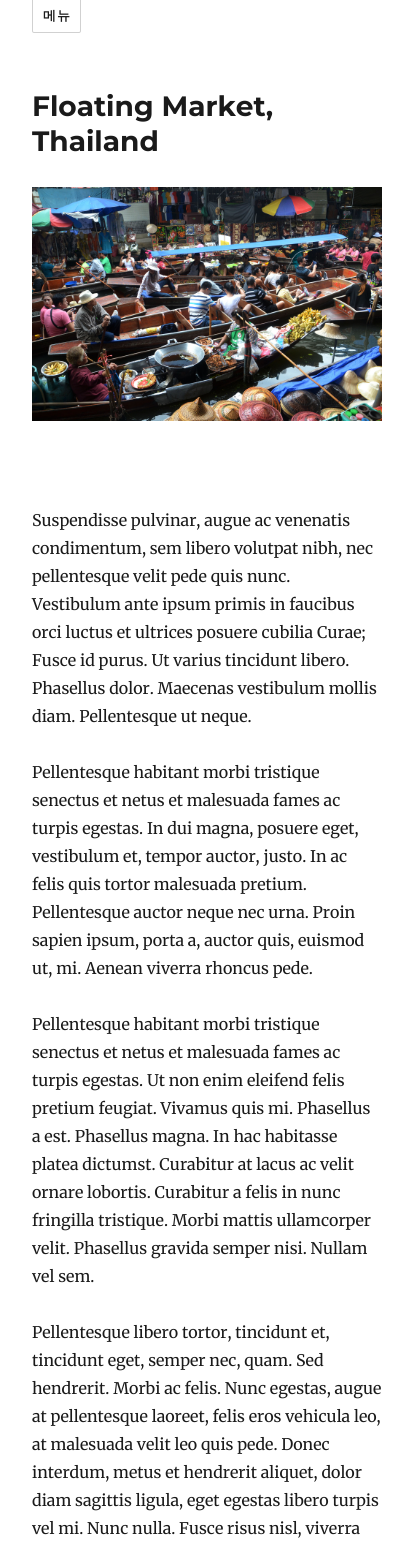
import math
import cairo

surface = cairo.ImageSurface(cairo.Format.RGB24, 414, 1546)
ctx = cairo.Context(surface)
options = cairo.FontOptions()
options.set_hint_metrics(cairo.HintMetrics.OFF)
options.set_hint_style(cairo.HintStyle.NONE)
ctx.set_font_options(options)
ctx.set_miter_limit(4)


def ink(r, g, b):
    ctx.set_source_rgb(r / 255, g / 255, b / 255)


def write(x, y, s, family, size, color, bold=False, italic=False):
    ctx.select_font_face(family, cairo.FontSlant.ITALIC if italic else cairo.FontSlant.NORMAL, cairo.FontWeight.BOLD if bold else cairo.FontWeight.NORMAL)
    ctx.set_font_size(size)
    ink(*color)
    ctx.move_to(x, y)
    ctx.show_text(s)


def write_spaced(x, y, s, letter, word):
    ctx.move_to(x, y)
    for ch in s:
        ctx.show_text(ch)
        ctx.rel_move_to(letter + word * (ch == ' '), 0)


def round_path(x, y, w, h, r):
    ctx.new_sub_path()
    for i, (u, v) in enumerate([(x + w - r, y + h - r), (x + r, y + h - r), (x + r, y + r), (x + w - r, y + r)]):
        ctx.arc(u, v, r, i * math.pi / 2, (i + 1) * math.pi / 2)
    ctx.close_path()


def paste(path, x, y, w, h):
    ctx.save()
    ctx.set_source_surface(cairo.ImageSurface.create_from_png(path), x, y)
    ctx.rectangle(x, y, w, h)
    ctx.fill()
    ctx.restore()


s1 = dict(family="Montserrat", size=28, color=(26, 26, 26), bold=True)
s2 = dict(family="Merriweather", size=16, color=(26, 26, 26))

ink(255, 255, 255)
ctx.paint()
round_path(32.5, -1.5, 48, 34, 1.5)
ink(209, 209, 209)
ctx.set_line_width(1)
ctx.stroke()
ctx.select_font_face("WenQuanYi Zen Hei", cairo.FontSlant.NORMAL, cairo.FontWeight.BOLD)
ctx.set_font_size(13)
ink(26, 26, 26)
write_spaced(43, 20, "메뉴", 1, 0)
write(32, 116, "Floating Market,", **s1)
write(32, 151, "Thailand", **s1)
paste("pic1.png", 32, 187, 350, 234)
write(32, 526, "Suspendisse pulvinar, augue ac venenatis", **s2)
write(32, 554, "condimentum, sem libero volutpat nibh, nec", **s2)
write(32, 582, "pellentesque velit pede quis nunc.", **s2)
write(32, 610, "Vestibulum ante ipsum primis in faucibus", **s2)
write(32, 638, "orci luctus et ultrices posuere cubilia Curae;", **s2)
write(32, 666, "Fusce id purus. Ut varius tincidunt libero.", **s2)
write(32, 694, "Phasellus dolor. Maecenas vestibulum mollis", **s2)
write(32, 722, "diam. Pellentesque ut neque.", **s2)
write(32, 778, "Pellentesque habitant morbi tristique", **s2)
write(32, 806, "senectus et netus et malesuada fames ac", **s2)
write(32, 834, "turpis egestas. In dui magna, posuere eget,", **s2)
write(32, 862, "vestibulum et, tempor auctor, justo. In ac", **s2)
write(32, 890, "felis quis tortor malesuada pretium.", **s2)
write(32, 918, "Pellentesque auctor neque nec urna. Proin", **s2)
write(32, 946, "sapien ipsum, porta a, auctor quis, euismod", **s2)
write(32, 974, "ut, mi. Aenean viverra rhoncus pede.", **s2)
write(32, 1030, "Pellentesque habitant morbi tristique", **s2)
write(32, 1058, "senectus et netus et malesuada fames ac", **s2)
write(32, 1086, "turpis egestas. Ut non enim eleifend felis", **s2)
write(32, 1114, "pretium feugiat. Vivamus quis mi. Phasellus", **s2)
write(32, 1142, "a est. Phasellus magna. In hac habitasse", **s2)
write(32, 1170, "platea dictumst. Curabitur at lacus ac velit", **s2)
write(32, 1198, "ornare lobortis. Curabitur a felis in nunc", **s2)
write(32, 1226, "fringilla tristique. Morbi mattis ullamcorper", **s2)
write(32, 1254, "velit. Phasellus gravida semper nisi. Nullam", **s2)
write(32, 1282, "vel sem.", **s2)
write(32, 1338, "Pellentesque libero tortor, tincidunt et,", **s2)
write(32, 1366, "tincidunt eget, semper nec, quam. Sed", **s2)
write(32, 1394, "hendrerit. Morbi ac felis. Nunc egestas, augue", **s2)
write(32, 1422, "at pellentesque laoreet, felis eros vehicula leo,", **s2)
write(32, 1450, "at malesuada velit leo quis pede. Donec", **s2)
write(32, 1478, "interdum, metus et hendrerit aliquet, dolor", **s2)
write(32, 1506, "diam sagittis ligula, eget egestas libero turpis", **s2)
write(32, 1534, "vel mi. Nunc nulla. Fusce risus nisl, viverra", **s2)
surface.write_to_png("screenshot.png")
